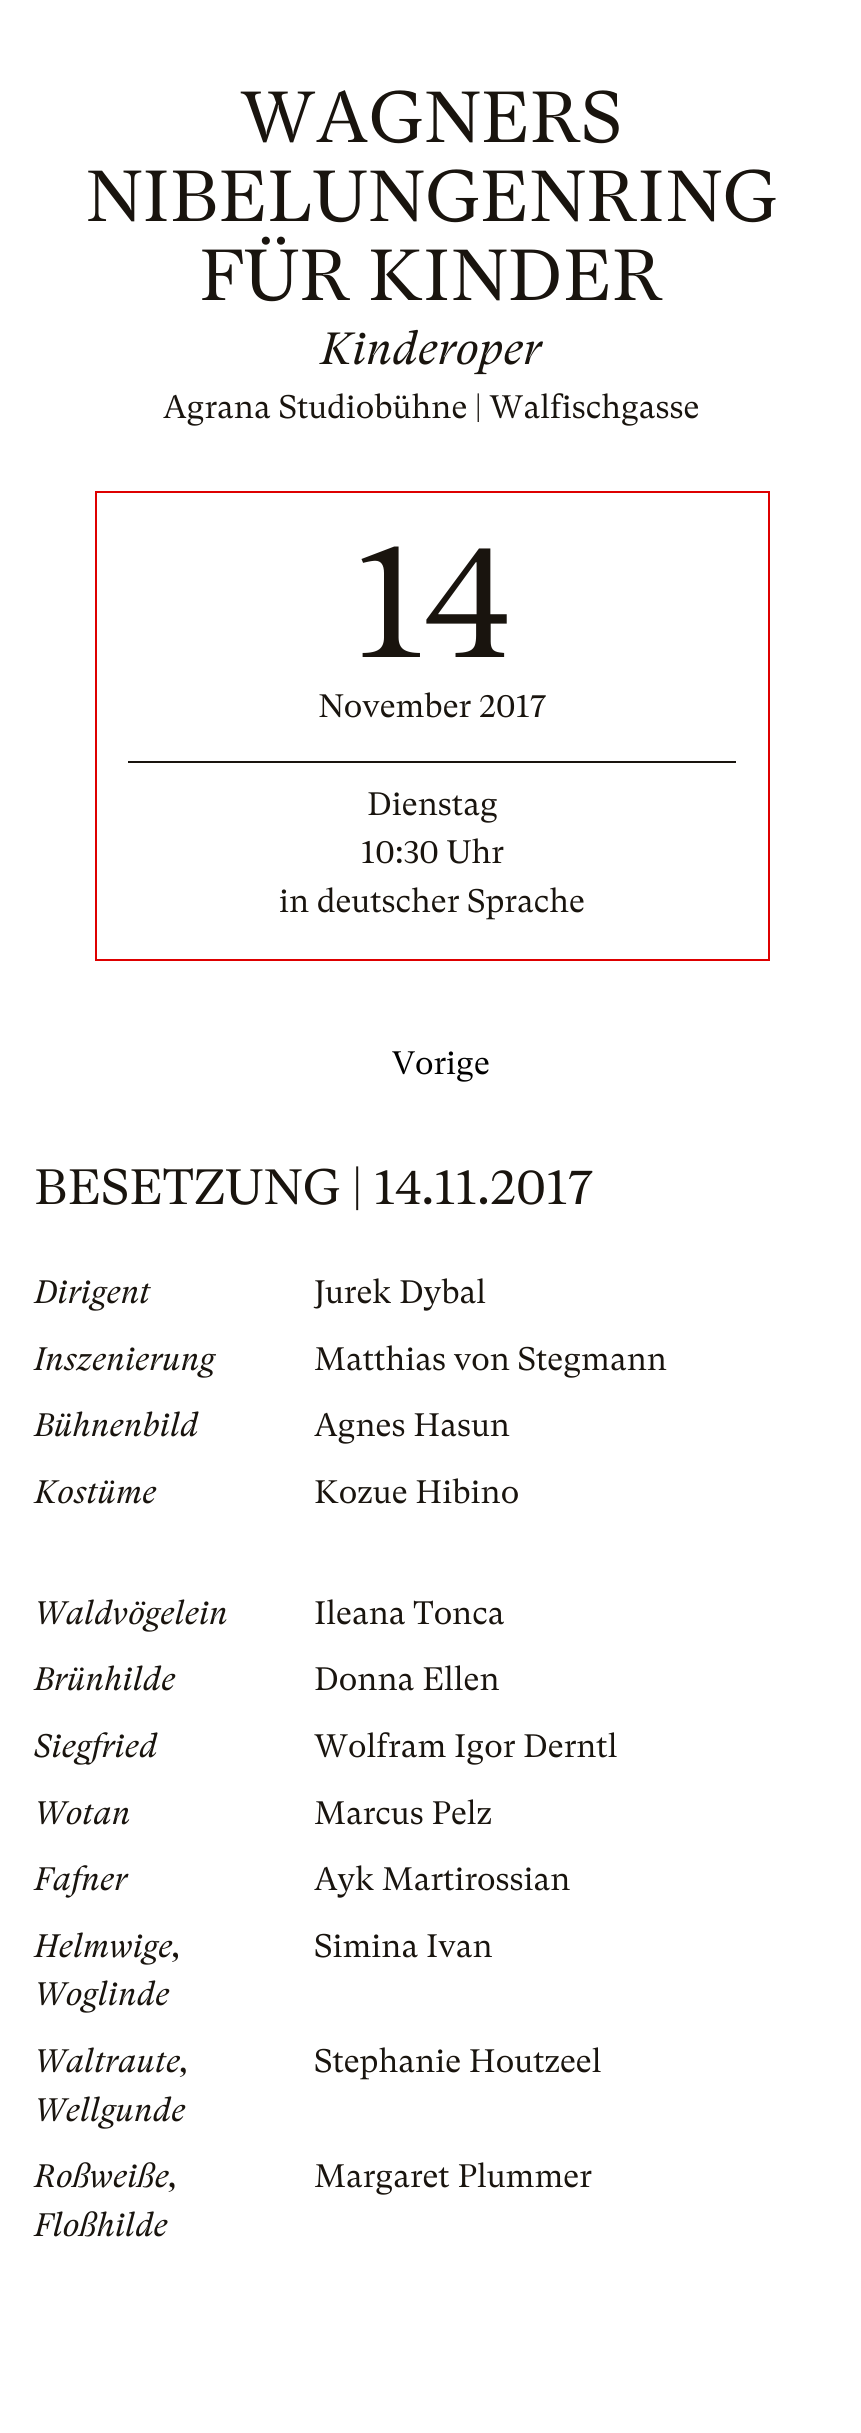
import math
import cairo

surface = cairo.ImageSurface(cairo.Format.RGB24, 861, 2433)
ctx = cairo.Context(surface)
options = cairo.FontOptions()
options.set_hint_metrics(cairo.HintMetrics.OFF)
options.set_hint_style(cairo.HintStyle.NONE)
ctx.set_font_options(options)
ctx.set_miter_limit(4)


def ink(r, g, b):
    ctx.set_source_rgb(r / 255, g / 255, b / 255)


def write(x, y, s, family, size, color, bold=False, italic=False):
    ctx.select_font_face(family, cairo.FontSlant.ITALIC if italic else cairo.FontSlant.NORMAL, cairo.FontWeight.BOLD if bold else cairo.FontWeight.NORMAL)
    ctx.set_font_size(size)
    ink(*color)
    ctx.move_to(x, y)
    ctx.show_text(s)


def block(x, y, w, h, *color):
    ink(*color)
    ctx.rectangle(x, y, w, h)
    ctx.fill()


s1 = dict(family="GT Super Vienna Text", size=72, color=(25, 20, 14))
s2 = dict(family="GT Super Vienna Text", size=45, color=(25, 20, 14), italic=True)
s3 = dict(family="GT Super Vienna Text", size=32.4, color=(25, 20, 14))
s4 = dict(family="GT Super Vienna Text", size=162, color=(25, 20, 14))
s5 = dict(family="GT Super Vienna Text", size=32.4, color=(0, 0, 0))
s6 = dict(family="GT Super Vienna Text", size=49.5, color=(25, 20, 14))
s7 = dict(family="GT Super Vienna Text", size=32.4, color=(25, 20, 14), italic=True)

ink(255, 255, 255)
ctx.paint()
write(240, 142, "WAGNERS", **s1)
write(85, 221, "NIBELUNGENRING", **s1)
write(199, 300, "FÜR KINDER", **s1)
write(320, 364, "Kinderoper", **s2)
write(163, 418, "Agrana Studiobühne | Walfischgasse", **s3)
ctx.rectangle(96, 492, 673, 468)
ink(222, 0, 0)
ctx.stroke()
write(355, 657, "14", **s4)
block(128, 761, 608, 2, 25, 20, 14)
write(318, 717, "November 2017", **s3)
write(367, 815, "Dienstag", **s3)
write(361, 863, "10:30 Uhr", **s3)
write(279, 912, "in deutscher Sprache", **s3)
write(392, 1074, "Vorige", **s5)
write(34, 1204, "BESETZUNG | 14.11.2017", **s6)
write(34, 1303, "Dirigent", **s7)
write(314, 1303, "Jurek Dybal", **s3)
write(34, 1370, "Inszenierung", **s7)
write(314, 1370, "Matthias von Stegmann", **s3)
write(34, 1436, "Bühnenbild", **s7)
write(314, 1436, "Agnes Hasun", **s3)
write(34, 1503, "Kostüme", **s7)
write(314, 1503, "Kozue Hibino", **s3)
write(34, 1624, "Waldvögelein", **s7)
write(314, 1624, "Ileana Tonca", **s3)
write(34, 1690, "Brünhilde", **s7)
write(314, 1690, "Donna Ellen", **s3)
write(34, 1757, "Siegfried", **s7)
write(314, 1757, "Wolfram Igor Derntl", **s3)
write(34, 1824, "Wotan", **s7)
write(314, 1824, "Marcus Pelz", **s3)
write(34, 1890, "Fafner", **s7)
write(314, 1890, "Ayk Martirossian", **s3)
write(34, 1957, "Helmwige,", **s7)
write(34, 2005, "Woglinde", **s7)
write(314, 1957, "Simina Ivan", **s3)
write(34, 2072, "Waltraute,", **s7)
write(34, 2121, "Wellgunde", **s7)
write(314, 2072, "Stephanie Houtzeel", **s3)
write(34, 2187, "Roßweiße,", **s7)
write(34, 2236, "Floßhilde", **s7)
write(314, 2187, "Margaret Plummer", **s3)
surface.write_to_png("screenshot.png")
